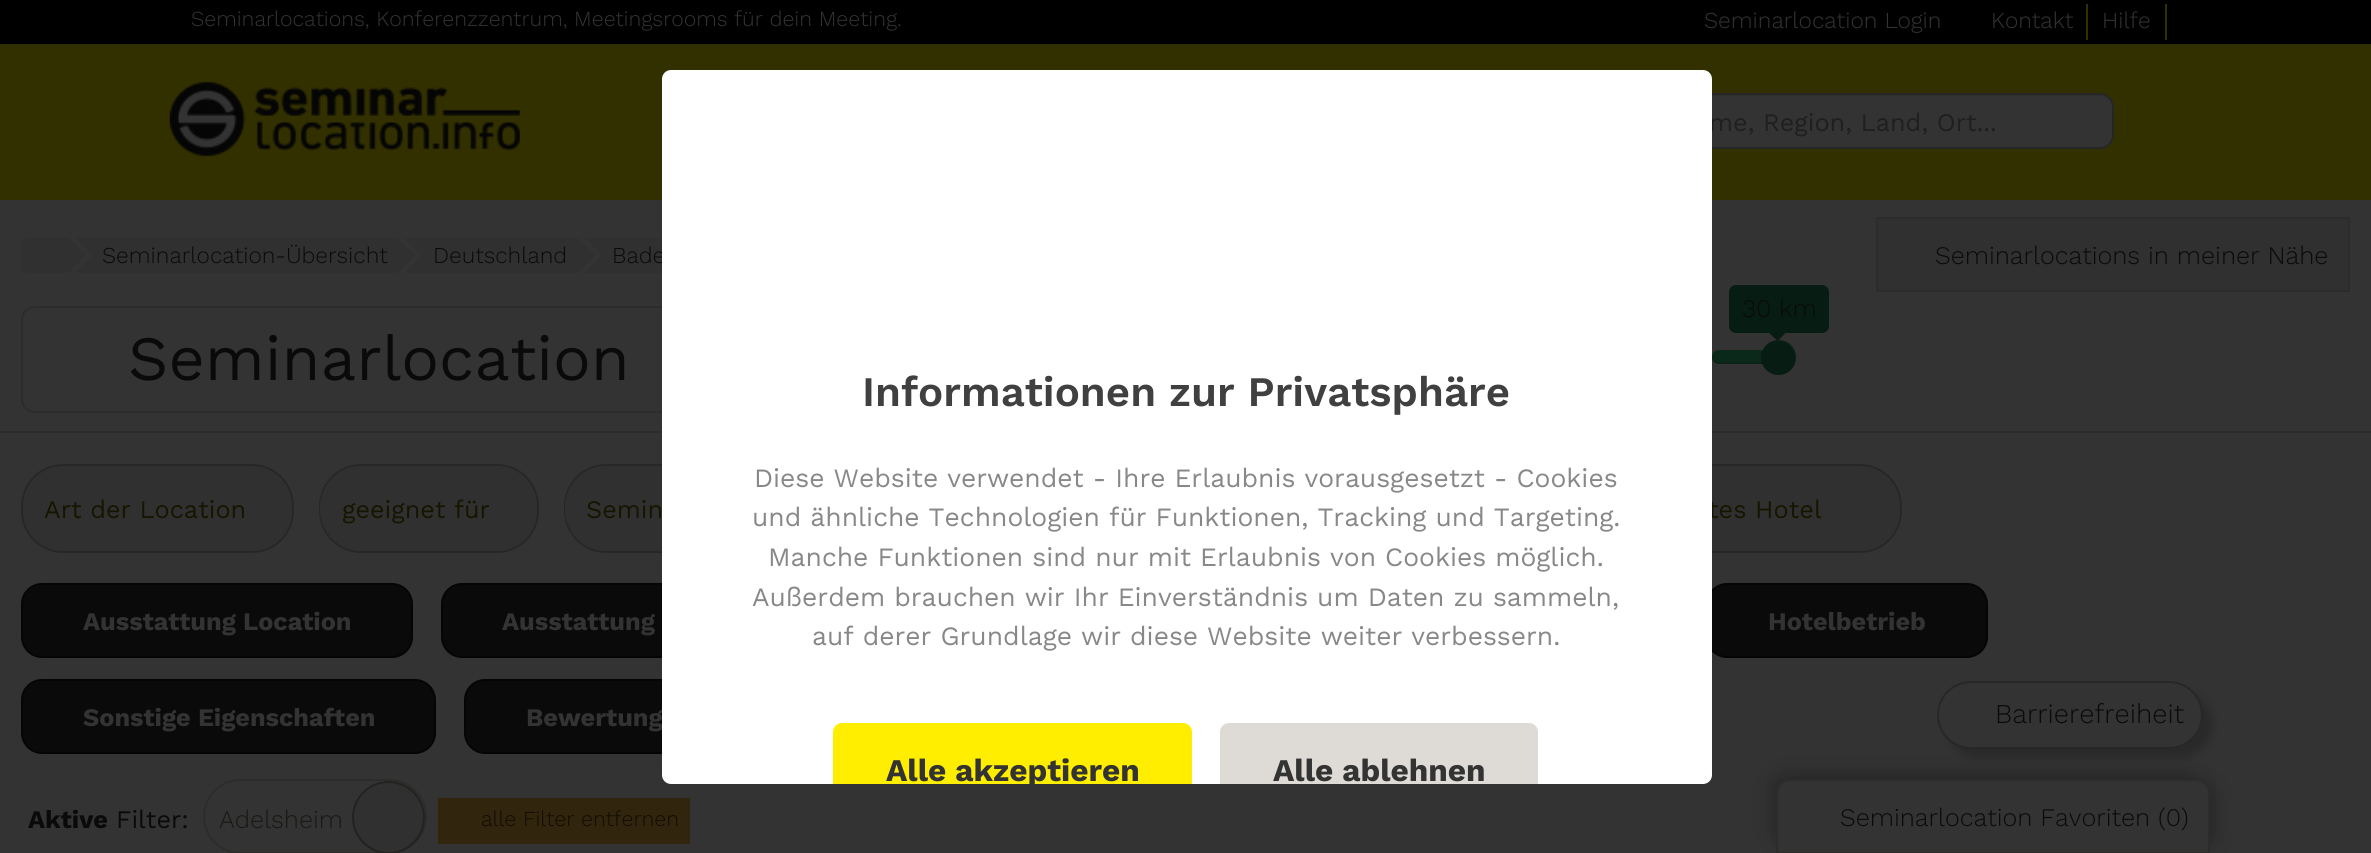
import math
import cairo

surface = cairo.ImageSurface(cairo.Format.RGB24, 2371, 853)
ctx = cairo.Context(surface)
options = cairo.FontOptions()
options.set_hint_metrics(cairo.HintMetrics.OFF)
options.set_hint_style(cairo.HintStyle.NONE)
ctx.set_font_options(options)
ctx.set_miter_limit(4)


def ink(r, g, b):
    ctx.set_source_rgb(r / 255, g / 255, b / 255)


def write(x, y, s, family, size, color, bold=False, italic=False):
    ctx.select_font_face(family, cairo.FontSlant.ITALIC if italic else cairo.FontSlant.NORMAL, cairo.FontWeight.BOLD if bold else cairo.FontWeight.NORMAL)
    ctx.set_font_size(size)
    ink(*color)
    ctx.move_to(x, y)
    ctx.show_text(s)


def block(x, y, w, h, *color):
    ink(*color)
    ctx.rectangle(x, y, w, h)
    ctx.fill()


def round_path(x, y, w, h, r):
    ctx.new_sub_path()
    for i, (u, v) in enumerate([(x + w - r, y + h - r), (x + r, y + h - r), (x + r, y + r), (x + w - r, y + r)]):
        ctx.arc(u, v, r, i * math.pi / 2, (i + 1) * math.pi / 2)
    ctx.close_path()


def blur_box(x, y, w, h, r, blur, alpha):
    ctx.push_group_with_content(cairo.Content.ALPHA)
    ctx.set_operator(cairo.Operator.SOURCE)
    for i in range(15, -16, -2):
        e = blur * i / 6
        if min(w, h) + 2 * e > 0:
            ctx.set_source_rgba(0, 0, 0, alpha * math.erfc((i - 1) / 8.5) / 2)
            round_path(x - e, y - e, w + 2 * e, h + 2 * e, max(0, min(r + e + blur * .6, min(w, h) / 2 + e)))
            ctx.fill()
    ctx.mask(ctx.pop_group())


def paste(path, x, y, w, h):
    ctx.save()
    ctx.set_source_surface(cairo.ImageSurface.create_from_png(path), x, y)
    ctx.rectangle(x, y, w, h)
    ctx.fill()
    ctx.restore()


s1 = dict(family="Work Sans Light", size=21.4, color=(51, 51, 51))
s2 = dict(family="Work Sans Light", size=22.75, color=(51, 51, 51))
s3 = dict(family="Work Sans Light", size=27.25, color=(10, 10, 10))
s4 = dict(family="Work Sans", size=25.25, color=(31, 31, 31))
s5 = dict(family="Work Sans Light", size=22.75, color=(10, 10, 10))
s6 = dict(family="Work Sans Light", size=25.25, color=(10, 10, 10))
s7 = dict(family="Work Sans", size=63, color=(10, 10, 10))
s8 = dict(family="Work Sans", size=25.25, color=(22, 21, 0))
s9 = dict(family="Work Sans", size=25.25, color=(51, 51, 51), bold=True)
s10 = dict(family="Work Sans", size=25.25, color=(10, 10, 10), bold=True)
s11 = dict(family="Work Sans", size=25.25, color=(10, 10, 10))
s12 = dict(family="Work Sans Light", size=25.25, color=(26, 24, 21))
s13 = dict(family="Work Sans Light", size=21.4, color=(18, 12, 1))
s14 = dict(family="Work Sans SemiBold", size=42, color=(64, 64, 64))
s15 = dict(family="Work Sans", size=26.45, color=(136, 136, 136))
s16 = dict(family="Work Sans", size=31.5, color=(51, 51, 51), bold=True)

ink(51, 51, 51)
ctx.paint()
block(0, 0, 2371, 44, 0, 0, 0)
write(191, 26, "Seminarlocations, Konferenzzentrum, Meetingsrooms für dein Meeting.", **s1)
write(1704, 28, "Seminarlocation Login", **s2)
block(2086, 4, 2, 36, 51, 48, 0)
write(1991, 28, "Kontakt", **s2)
block(2165, 4, 2, 36, 51, 48, 0)
write(2102, 28, "Hilfe", **s2)
ink(0, 0, 0)
blur_box(1946, 690, 266, 68, 34, 4.5, 0.2)
blur_box(1794, 788, 416, 57, 5, 13, 0.3)
blur_box(1776, 779, 417, 58, 5, 13, 0.3)
ink(51, 51, 51)
round_path(1938, 682, 264, 66, 33)
ctx.fill_preserve()
ink(40, 39, 37)
ctx.stroke()
write(1995, 723, "Barrierefreiheit", **s3)
block(0, 44, 2371, 156, 51, 48, 0)
paste("pic1.png", 169, 81, 351, 76)
ink(51, 51, 51)
round_path(1666, 93, 448, 56, 14)
ctx.fill()
ink(47, 47, 47)
ctx.new_path()
ctx.move_to(1680, 96)
ctx.line_to(2100, 96)
ctx.curve_to(2107, 96, 2112, 102, 2112, 108)
ctx.line_to(2112, 107)
ctx.curve_to(2112, 100, 2107, 95, 2100, 95)
ctx.line_to(1680, 95)
ctx.curve_to(1673, 95, 1668, 100, 1668, 107)
ctx.line_to(1668, 108)
ctx.curve_to(1668, 102, 1673, 96, 1680, 96)
ctx.close_path()
ctx.fill()
round_path(1667, 94, 446, 54, 13)
ctx.set_source_rgba(0, 0, 0, 0.25)
ctx.stroke()
write(1709, 131, "me, Region, Land, Ort...", **s4)
ink(49, 48, 48)
ctx.new_path()
ctx.move_to(28, 238)
ctx.line_to(68, 238)
ctx.line_to(68, 273)
ctx.line_to(28, 273)
ctx.curve_to(24, 273, 21, 270, 21, 266)
ctx.line_to(21, 245)
ctx.curve_to(21, 241, 24, 238, 28, 238)
ctx.close_path()
ctx.fill()
ctx.new_path()
ctx.move_to(75, 238)
ctx.line_to(93, 238)
ctx.line_to(93, 255.5)
ctx.close_path()
ctx.fill()
ctx.new_path()
ctx.move_to(93, 273)
ctx.line_to(75, 273)
ctx.line_to(93, 255.5)
ctx.close_path()
ctx.fill()
ctx.new_path()
ctx.move_to(68, 273)
ctx.line_to(68, 238)
ctx.line_to(86, 255.5)
ctx.close_path()
ctx.fill()
block(93, 238, 304, 35, 49, 48, 48)
write(102, 263, "Seminarlocation-Übersicht", **s5)
ink(49, 48, 48)
ctx.new_path()
ctx.move_to(404, 238)
ctx.line_to(422, 238)
ctx.line_to(422, 255.5)
ctx.close_path()
ctx.fill()
ctx.new_path()
ctx.move_to(422, 273)
ctx.line_to(404, 273)
ctx.line_to(422, 255.5)
ctx.close_path()
ctx.fill()
ctx.new_path()
ctx.move_to(397, 273)
ctx.line_to(397, 238)
ctx.line_to(415, 255.5)
ctx.close_path()
ctx.fill()
block(422, 238, 156, 35, 49, 48, 48)
write(433, 263, "Deutschland", **s5)
ink(49, 48, 48)
ctx.new_path()
ctx.move_to(584.5, 238)
ctx.line_to(602, 238)
ctx.line_to(602, 255.5)
ctx.close_path()
ctx.fill()
ctx.new_path()
ctx.move_to(602, 273)
ctx.line_to(584.5, 273)
ctx.line_to(602, 255.5)
ctx.close_path()
ctx.fill()
ctx.new_path()
ctx.move_to(577.5, 273)
ctx.line_to(577.5, 238)
ctx.line_to(595, 255.5)
ctx.close_path()
ctx.fill()
block(602, 238, 60, 35, 49, 48, 48)
write(612, 263, "Bade", **s5)
ink(49, 48, 48)
ctx.rectangle(1877, 218, 472, 73)
ctx.fill_preserve()
ink(44, 44, 43)
ctx.stroke()
write(1935, 264, "Seminarlocations in meiner Nähe", **s6)
ink(10, 41, 26)
round_path(1712, 350, 66, 14, 7)
ctx.fill()
ctx.set_source_rgba(0, 0, 0, 0.15)
ctx.new_path()
ctx.move_to(1712, 356)
ctx.curve_to(1711, 365, 1722, 364, 1728, 364)
ctx.line_to(1762, 364)
ctx.curve_to(1768, 364, 1779, 365, 1778, 356)
ctx.curve_to(1777, 360, 1775, 362, 1771, 362)
ctx.line_to(1718, 362)
ctx.curve_to(1715, 362, 1713, 360, 1712, 356)
ctx.close_path()
ctx.fill()
ink(7, 28, 18)
ctx.arc(1778.5, 357.5, 17.5, 0, 2 * math.pi)
ctx.fill()
ctx.set_source_rgba(0.2, 0.2, 0.2, 0.2)
ctx.new_path()
ctx.move_to(1778, 341)
ctx.curve_to(1793, 341, 1798, 356, 1793.5, 366.5)
ctx.curve_to(1802.5, 350.5, 1784, 332.5, 1768.5, 343)
ctx.curve_to(1766, 345, 1763.5, 347.5, 1762.5, 351)
ctx.curve_to(1764.5, 345.5, 1770, 341, 1778, 341)
ctx.close_path()
ctx.fill()
ink(7, 28, 18)
ctx.new_path()
ctx.move_to(1768.5, 332.5)
ctx.line_to(1786, 332.5)
ctx.line_to(1777.5, 341)
ctx.close_path()
ctx.fill()
round_path(1729, 285, 100, 48, 7)
ctx.fill()
write(1742, 317, "30 km", **s6)
round_path(22, 307, 1482, 105, 13)
ink(44, 44, 43)
ctx.stroke()
write(128, 380, "Seminarlocation", **s7)
block(0, 431, 2371, 2, 44, 44, 43)
ink(49, 48, 48)
round_path(22, 465, 271, 87, 41)
ctx.fill_preserve()
ink(39, 39, 39)
ctx.stroke()
write(44, 518, "Art der Location", **s8)
ink(49, 48, 48)
round_path(320, 465, 218, 87, 41)
ctx.fill_preserve()
ink(39, 39, 39)
ctx.stroke()
ink(49, 48, 48)
round_path(320, 466, 217, 85, 42)
ctx.fill()
write(342, 518, "geeignet für", **s8)
ink(49, 48, 48)
round_path(565, 465, 335, 87, 41)
ctx.fill_preserve()
ink(39, 39, 39)
ctx.stroke()
ink(49, 48, 48)
round_path(565, 466, 303, 85, 42)
ctx.fill()
write(586, 518, "Semin", **s8)
ink(49, 48, 48)
round_path(1615, 465, 286, 87, 41)
ctx.fill_preserve()
ink(39, 39, 39)
ctx.stroke()
ink(49, 48, 48)
round_path(1615, 466, 254, 85, 42)
ctx.fill()
write(1708, 518, "tes Hotel", **s8)
ink(10, 10, 10)
round_path(22, 584, 390, 73, 20)
ctx.fill_preserve()
ink(5, 5, 5)
ctx.stroke()
write(83, 630, "Ausstattung Location", **s9)
ink(10, 10, 10)
round_path(442, 584, 448, 73, 20)
ctx.fill_preserve()
ink(5, 5, 5)
ctx.stroke()
write(502, 630, "Ausstattung", **s9)
ink(10, 10, 10)
round_path(1707, 584, 280, 73, 20)
ctx.fill_preserve()
ink(5, 5, 5)
ctx.stroke()
write(1768, 630, "Hotelbetrieb", **s9)
ink(10, 10, 10)
round_path(22, 680, 413, 73, 20)
ctx.fill_preserve()
ink(5, 5, 5)
ctx.stroke()
write(83, 726, "Sonstige Eigenschaften", **s9)
ink(10, 10, 10)
round_path(465, 680, 259, 73, 20)
ctx.fill_preserve()
ink(5, 5, 5)
ctx.stroke()
write(526, 726, "Bewertung", **s9)
write(28, 828, "Aktive", **s10)
write(116, 828, "Filter:", **s11)
round_path(204, 780, 222, 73, 36.5)
ink(44, 44, 43)
ctx.stroke()
write(219, 828, "Adelsheim", **s12)
ink(49, 48, 48)
ctx.new_path()
ctx.arc(388.5, 817.5, 35.5, 0, 2 * math.pi)
ctx.fill_preserve()
ink(35, 34, 32)
ctx.stroke()
block(438, 798, 252, 46, 49, 37, 13)
write(481, 826, "alle Filter entfernen", **s13)
ink(51, 51, 51)
ctx.new_path()
ctx.move_to(1790, 780)
ctx.line_to(2196, 780)
ctx.curve_to(2203, 780, 2209, 786, 2209, 793)
ctx.line_to(2209, 853)
ctx.line_to(1777, 853)
ctx.line_to(1777, 793)
ctx.curve_to(1777, 786, 1783, 780, 1790, 780)
ctx.close_path()
ctx.fill_preserve()
ink(44, 44, 43)
ctx.stroke()
write(1840, 826, "Seminarlocation Favoriten (0)", **s6)
ink(255, 255, 255)
round_path(662, 70, 1050, 714, 9)
ctx.fill()
write(862, 406, "Informationen zur Privatsphäre", **s14)
write(754, 487, "Diese Website verwendet - Ihre Erlaubnis vorausgesetzt - Cookies", **s15)
write(752, 526, "und ähnliche Technologien für Funktionen, Tracking und Targeting.", **s15)
write(768, 566, "Manche Funktionen sind nur mit Erlaubnis von Cookies möglich.", **s15)
write(752, 606, "Außerdem brauchen wir Ihr Einverständnis um Daten zu sammeln,", **s15)
write(812, 645, "auf derer Grundlage wir diese Website weiter verbessern.", **s15)
ink(255, 238, 0)
ctx.new_path()
ctx.move_to(842, 723)
ctx.line_to(1183, 723)
ctx.curve_to(1188, 723, 1192, 727, 1192, 732)
ctx.line_to(1192, 784)
ctx.line_to(833, 784)
ctx.line_to(833, 732)
ctx.curve_to(833, 727, 837, 723, 842, 723)
ctx.close_path()
ctx.fill()
ctx.save()
round_path(662, 70, 1050, 714, 9)
ctx.clip()
write(886, 781, "Alle akzeptieren", **s16)
ctx.restore()
ink(222, 219, 215)
ctx.new_path()
ctx.move_to(1229, 723)
ctx.line_to(1529, 723)
ctx.curve_to(1534, 723, 1538, 727, 1538, 732)
ctx.line_to(1538, 784)
ctx.line_to(1220, 784)
ctx.line_to(1220, 732)
ctx.curve_to(1220, 727, 1224, 723, 1229, 723)
ctx.close_path()
ctx.fill()
write(1273, 781, "Alle ablehnen", **s16)
surface.write_to_png("screenshot.png")
